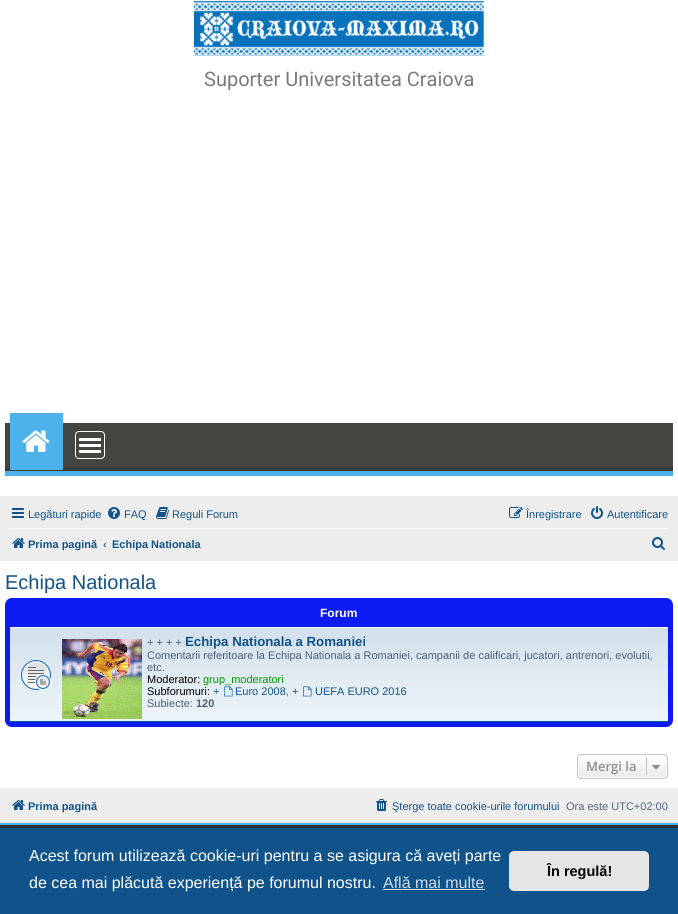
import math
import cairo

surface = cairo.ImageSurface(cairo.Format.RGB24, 678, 914)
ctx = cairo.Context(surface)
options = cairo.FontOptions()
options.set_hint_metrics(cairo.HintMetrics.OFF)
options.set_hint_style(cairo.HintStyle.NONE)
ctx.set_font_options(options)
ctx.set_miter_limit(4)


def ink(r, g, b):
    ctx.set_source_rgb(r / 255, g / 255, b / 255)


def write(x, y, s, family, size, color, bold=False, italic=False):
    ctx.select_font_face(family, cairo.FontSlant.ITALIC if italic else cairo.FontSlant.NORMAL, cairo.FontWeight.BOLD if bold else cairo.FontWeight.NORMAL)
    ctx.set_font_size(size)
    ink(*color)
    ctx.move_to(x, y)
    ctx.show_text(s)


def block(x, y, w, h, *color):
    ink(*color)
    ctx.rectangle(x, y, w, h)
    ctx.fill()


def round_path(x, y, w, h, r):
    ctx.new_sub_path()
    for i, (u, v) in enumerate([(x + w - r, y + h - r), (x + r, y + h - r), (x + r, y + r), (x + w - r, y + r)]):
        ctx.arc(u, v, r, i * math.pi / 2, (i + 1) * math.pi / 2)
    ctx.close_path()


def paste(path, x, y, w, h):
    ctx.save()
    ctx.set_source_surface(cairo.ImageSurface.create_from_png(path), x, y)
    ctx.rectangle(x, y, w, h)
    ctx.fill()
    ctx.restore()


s1 = dict(family="Roboto", size=20, color=(122, 122, 122))
s2 = dict(family="Liberation Sans", size=11, color=(16, 82, 137))
s3 = dict(family="Liberation Sans", size=11, color=(16, 82, 137), bold=True)
s4 = dict(family="Liberation Sans", size=11, color=(83, 100, 130), bold=True)
s5 = dict(family="Liberation Sans", size=20, color=(16, 82, 137))
s6 = dict(family="Liberation Sans", size=12, color=(255, 255, 255), bold=True)
s7 = dict(family="Liberation Sans", size=11, color=(76, 93, 119))
s8 = dict(family="Liberation Sans", size=13.25, color=(16, 82, 137), bold=True)
s9 = dict(family="Liberation Sans", size=11, color=(0, 0, 0))
s10 = dict(family="Liberation Sans", size=11, color=(0, 153, 0))
s11 = dict(family="Liberation Sans", size=11, color=(76, 93, 119), bold=True)
s12 = dict(family="Open Sans SemiBold", size=13, color=(143, 143, 143))
s13 = dict(family="Liberation Sans", size=11, color=(83, 100, 130))
s14 = dict(family="Liberation Sans", size=16, color=(255, 255, 255))
s15 = dict(family="Liberation Sans", size=16, color=(207, 221, 232))
s16 = dict(family="Liberation Sans", size=14.5, color=(0, 0, 0), bold=True)

ink(255, 255, 255)
ctx.paint()
paste("pic1.png", 194, 1, 290, 55)
write(204, 86, "Suporter Universitatea Craiova", **s1)
block(5, 423, 668, 44, 68, 68, 65)
ctx.save()
ctx.rectangle(5, 423, 668, 48)
ctx.clip()
ink(57, 57, 57)
ctx.set_fill_rule(cairo.FillRule.EVEN_ODD)
ctx.new_path()
ctx.move_to(-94, 324)
ctx.line_to(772, 324)
ctx.line_to(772, 570)
ctx.line_to(-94, 570)
ctx.close_path()
ctx.move_to(4, 417)
ctx.line_to(672, 417)
ctx.curve_to(673, 417, 673, 417, 673, 418)
ctx.line_to(673, 466)
ctx.curve_to(673, 467, 673, 467, 672, 467)
ctx.line_to(4, 467)
ctx.curve_to(3, 467, 3, 467, 3, 466)
ctx.line_to(3, 418)
ctx.curve_to(3, 417, 3, 417, 4, 417)
ctx.close_path()
ctx.fill()
ctx.restore()
block(5, 471, 668, 5, 77, 178, 236)
block(10, 413, 53, 57, 77, 178, 236)
paste("pic2.png", 22, 430, 28, 22)
round_path(75.5, 431.5, 29, 27, 3.5)
ink(255, 255, 255)
ctx.set_line_width(1)
ctx.stroke()
block(79, 450, 22, 3, 255, 255, 255)
block(79, 444, 22, 3, 255, 255, 255)
block(79, 438, 22, 3, 255, 255, 255)
block(0, 496, 678, 65, 237, 237, 237)
paste("pic3.png", 12, 508, 12, 10)
write(28, 518, "Legături rapide", **s2)
paste("pic4.png", 108, 507, 12, 12)
write(124, 518, "FAQ", **s2)
paste("pic5.png", 156, 507, 13, 12)
write(172, 518, "Reguli Forum", **s2)
paste("pic6.png", 509, 507, 14, 11)
write(526, 518, "Înregistrare", **s2)
paste("pic7.png", 591, 506, 12, 13)
write(607, 518, "Autentificare", **s2)
block(10, 528, 658, 1, 255, 255, 255)
paste("pic8.png", 12, 538, 13, 10)
write(28, 548, "Prima pagină", **s3)
write(103, 548, "‹", **s4)
write(112, 548, "Echipa Nationala", **s3)
paste("pic9.png", 652, 537, 13, 13)
write(5, 589, "Echipa Nationala", **s5)
ink(12, 27, 244)
round_path(5, 598, 668, 129, 7)
ctx.fill()
write(320, 617, "Forum", **s6)
gradient = cairo.LinearGradient(339, 627, 339, 722)
gradient.add_color_stop_rgba(0, 0.824, 0.878, 0.922, 1)
gradient.add_color_stop_rgba(1, 0.933, 0.961, 0.976, 1)
ctx.set_source(gradient)
ctx.rectangle(10, 628, 658, 93)
ctx.fill()
block(10, 627, 658, 1, 255, 255, 255)
block(10, 721, 658, 1, 0, 96, 143)
paste("pic10.png", 21, 660, 30, 30)
paste("pic11.png", 62, 639, 80, 80)
write(147, 646, "+ + + +", **s7)
write(185, 646, "Echipa Nationala a Romaniei", **s8)
write(147, 659, "Comentarii referitoare la Echipa Nationala a Romaniei, campanii de calificari, jucatori, antrenori, evolutii,", **s7)
write(147, 671, "etc.", **s7)
write(147, 683, "Moderator:", **s9)
write(203, 683, "grup_moderatori", **s10)
write(147, 695, "Subforumuri:", **s9)
write(213, 695, "+", **s2)
paste("pic12.png", 224, 686, 9, 11)
write(235, 695, "Euro 2008", **s2)
write(286, 695, ",", **s7)
write(292, 695, "+", **s2)
paste("pic12.png", 303, 686, 9, 11)
write(315, 695, "UEFA EURO 2016", **s2)
write(147, 707, "Subiecte:", **s7)
write(196, 707, "120", **s11)
ctx.save()
round_path(577, 754, 91, 25, 4)
ctx.clip()
gradient = cairo.LinearGradient(623, 755, 623, 778)
gradient.add_color_stop_rgba(0, 1, 1, 1, 1)
gradient.add_color_stop_rgba(1, 0.914, 0.914, 0.914, 1)
ctx.set_source(gradient)
ctx.rectangle(577, 755, 91, 23)
ctx.fill()
ctx.restore()
round_path(578.5, 755.5, 88, 22, 2.5)
ink(255, 255, 255)
ctx.stroke()
round_path(577.5, 754.5, 90, 24, 3.5)
ink(199, 195, 191)
ctx.stroke()
write(586, 771, "Mergi la", **s12)
block(646, 757, 1, 18, 199, 195, 191)
paste("pic13.png", 652, 765, 8, 5)
block(0, 788, 678, 35, 237, 237, 237)
paste("pic8.png", 12, 800, 13, 10)
write(28, 810, "Prima pagină", **s3)
paste("pic14.png", 376, 799, 11, 12)
write(392, 810, "Şterge toate cookie-urile forumului", **s2)
write(566, 810, "Ora este UTC+02:00", **s13)
block(0, 825, 678, 3, 48, 48, 48)
block(0, 823, 678, 2, 77, 178, 236)
block(0, 828, 678, 86, 15, 83, 138)
write(29, 861, "Acest forum utilizează cookie-uri pentru a se asigura că aveți parte", **s14)
write(29, 888, "de cea mai plăcută experiență pe forumul nostru.", **s14)
write(383, 888, "Află mai multe", **s15)
block(383, 889, 102, 1, 207, 221, 232)
ink(229, 229, 229)
round_path(509, 851, 140, 40, 5)
ctx.fill()
write(547, 876, "În regulă!", **s16)
surface.write_to_png("screenshot.png")
